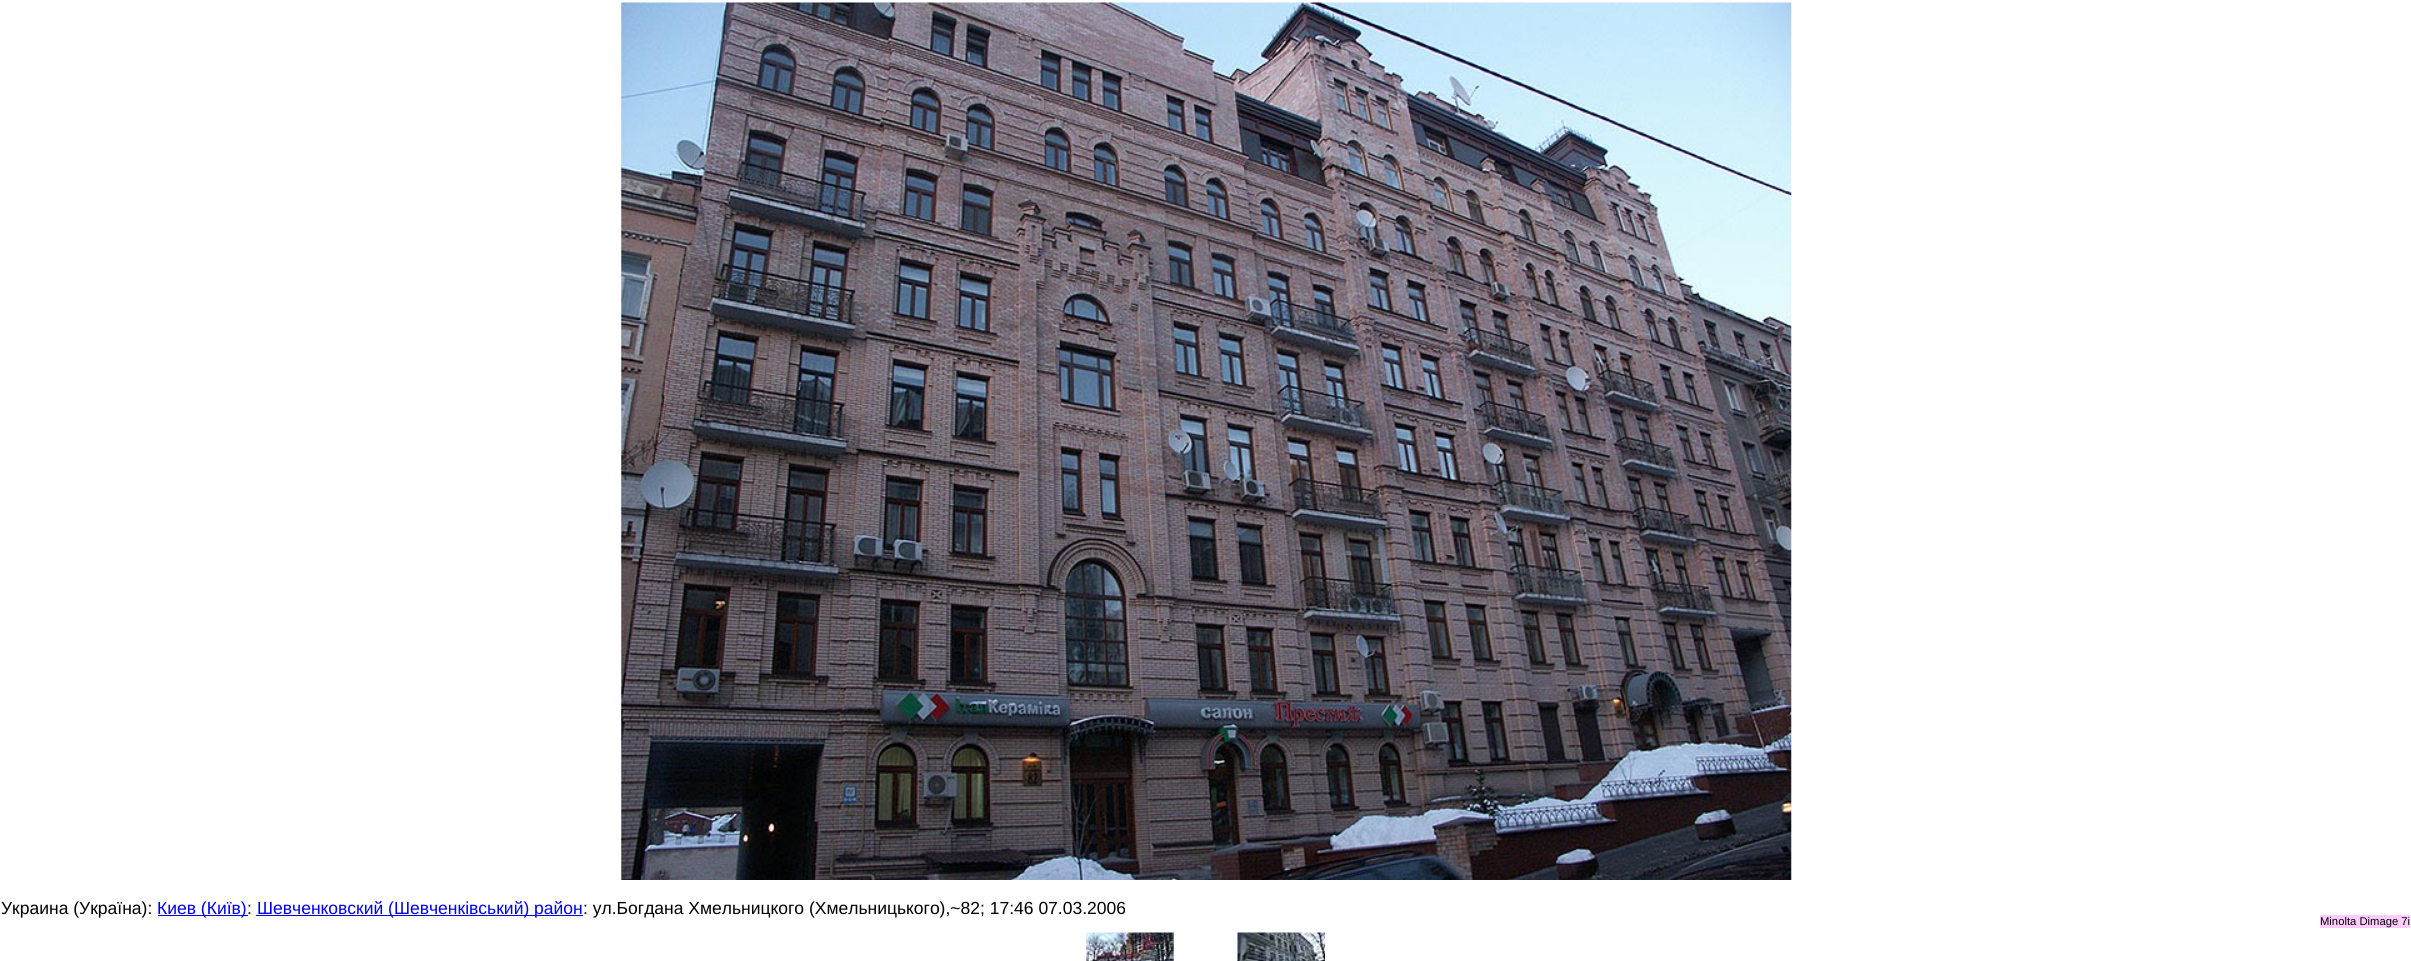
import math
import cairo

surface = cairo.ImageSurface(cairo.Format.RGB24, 2411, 961)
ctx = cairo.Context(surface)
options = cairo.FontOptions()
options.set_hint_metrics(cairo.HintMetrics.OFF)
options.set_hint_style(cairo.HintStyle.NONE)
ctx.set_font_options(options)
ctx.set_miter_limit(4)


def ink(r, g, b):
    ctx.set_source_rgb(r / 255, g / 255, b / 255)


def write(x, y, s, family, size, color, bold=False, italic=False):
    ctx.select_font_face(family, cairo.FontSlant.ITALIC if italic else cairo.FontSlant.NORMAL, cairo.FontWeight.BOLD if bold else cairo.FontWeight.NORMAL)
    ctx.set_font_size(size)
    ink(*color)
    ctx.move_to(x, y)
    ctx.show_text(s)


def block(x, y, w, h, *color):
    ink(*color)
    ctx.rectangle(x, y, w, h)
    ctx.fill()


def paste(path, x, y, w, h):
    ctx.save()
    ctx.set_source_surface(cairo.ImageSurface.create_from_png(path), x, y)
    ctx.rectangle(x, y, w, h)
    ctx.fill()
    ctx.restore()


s1 = dict(family="Liberation Sans", size=17.5, color=(0, 0, 0))
s2 = dict(family="Liberation Sans", size=17.5, color=(0, 0, 238))
s3 = dict(family="Liberation Sans", size=11.25, color=(0, 0, 0))

ink(255, 255, 255)
ctx.paint()
paste("pic1.png", 621, 2, 1171, 878)
write(1, 914, "Украина (Украïна):", **s1)
block(158, 915, 90, 1, 0, 0, 238)
write(157, 914, "Киев (Киïв)", **s2)
write(247, 914, ":", **s1)
block(256, 915, 327, 1, 0, 0, 238)
write(257, 914, "Шевченковский (Шевченкiвський) район", **s2)
write(583, 914, ": ул.Богдана Хмельницкого (Хмельницького),~82; 17:46 07.03.2006", **s1)
block(2320, 915, 90, 13, 255, 204, 255)
write(2320, 925, "Minolta Dimage 7i", **s3)
paste("pic2.png", 1086, 932, 88, 29)
paste("pic3.png", 1237, 932, 88, 29)
surface.write_to_png("screenshot.png")
